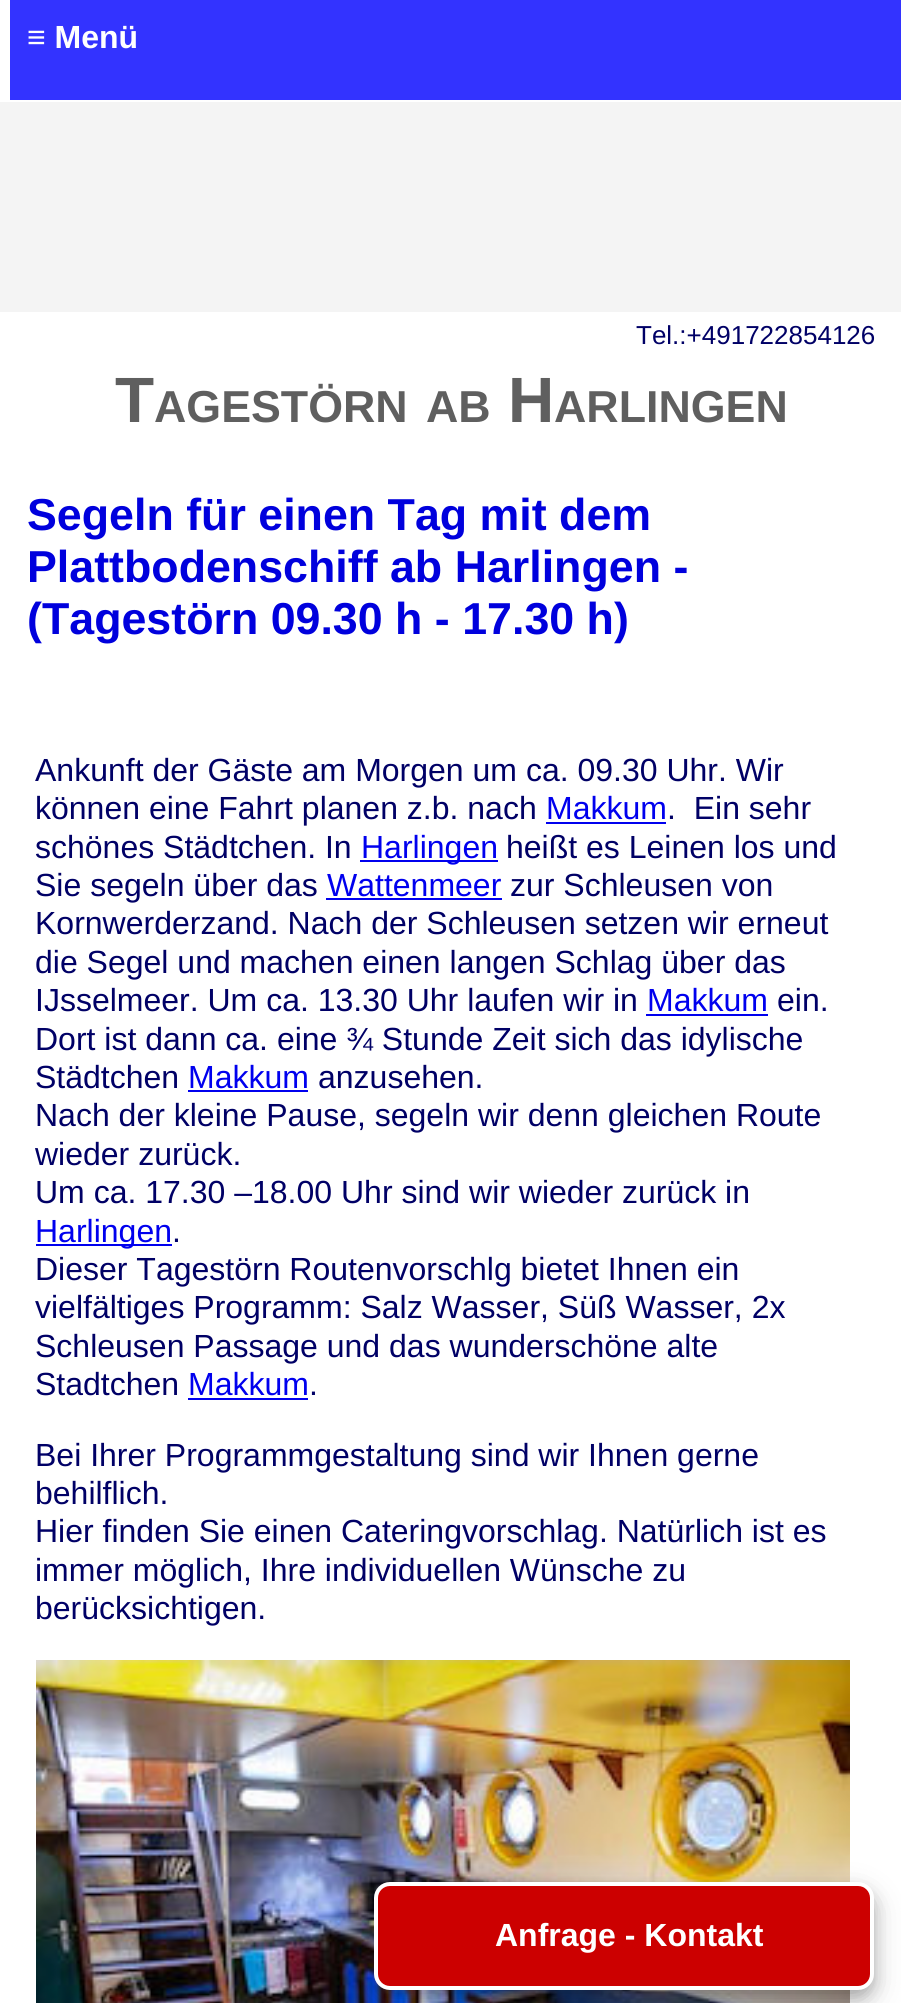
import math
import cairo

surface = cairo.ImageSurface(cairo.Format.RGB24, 901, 2003)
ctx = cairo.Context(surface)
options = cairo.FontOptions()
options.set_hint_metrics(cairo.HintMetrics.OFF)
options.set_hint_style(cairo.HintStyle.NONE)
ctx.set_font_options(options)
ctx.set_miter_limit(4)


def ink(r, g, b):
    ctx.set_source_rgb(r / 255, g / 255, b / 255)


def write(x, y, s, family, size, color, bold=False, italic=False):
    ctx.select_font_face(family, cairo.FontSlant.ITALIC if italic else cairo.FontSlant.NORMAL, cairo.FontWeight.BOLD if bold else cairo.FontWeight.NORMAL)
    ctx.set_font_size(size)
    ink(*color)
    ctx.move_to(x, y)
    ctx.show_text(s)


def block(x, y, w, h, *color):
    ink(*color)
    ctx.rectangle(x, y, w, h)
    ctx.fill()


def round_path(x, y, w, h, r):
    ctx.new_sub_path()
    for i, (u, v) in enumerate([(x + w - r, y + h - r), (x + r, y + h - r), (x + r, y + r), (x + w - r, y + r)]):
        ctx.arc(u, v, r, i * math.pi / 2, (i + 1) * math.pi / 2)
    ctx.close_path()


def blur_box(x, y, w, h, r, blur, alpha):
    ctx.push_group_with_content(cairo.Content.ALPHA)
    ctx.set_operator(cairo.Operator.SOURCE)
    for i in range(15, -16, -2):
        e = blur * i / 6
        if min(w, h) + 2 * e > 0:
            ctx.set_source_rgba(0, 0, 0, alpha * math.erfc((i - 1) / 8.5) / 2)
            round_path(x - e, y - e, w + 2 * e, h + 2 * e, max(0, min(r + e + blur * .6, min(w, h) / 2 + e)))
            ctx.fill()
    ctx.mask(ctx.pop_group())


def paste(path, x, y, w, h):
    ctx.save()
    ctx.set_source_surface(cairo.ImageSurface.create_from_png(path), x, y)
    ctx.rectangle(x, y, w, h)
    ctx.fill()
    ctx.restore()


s1 = dict(family="Liberation Sans", size=32, color=(255, 255, 255), bold=True)
s2 = dict(family="Liberation Sans", size=26, color=(0, 0, 102))
s3 = dict(family="Liberation Sans", size=64, color=(95, 95, 95), bold=True)
s4 = dict(family="Liberation Sans", size=44.75, color=(95, 95, 95), bold=True)
s5 = dict(family="Liberation Sans", size=44.75, color=(0, 0, 221), bold=True)
s6 = dict(family="Liberation Sans", size=32, color=(0, 0, 102))
s7 = dict(family="Liberation Sans", size=32, color=(0, 0, 238))

ink(255, 255, 255)
ctx.paint()
block(10, 0, 891, 100, 51, 51, 255)
write(27, 48, "≡ Menü", **s1)
block(0, 102, 901, 210, 244, 244, 244)
write(636, 344, "Tel.:+491722854126", **s2)
write(115, 422, "T", **s3)
write(154, 422, "AGESTÖRN", **s4)
write(426, 422, "AB", **s4)
write(508, 422, "H", **s3)
write(554, 422, "ARLINGEN", **s4)
write(27, 530, "Segeln für einen Tag mit dem", **s5)
write(27, 582, "Plattbodenschiff ab Harlingen -", **s5)
write(27, 634, "(Tagestörn 09.30 h - 17.30 h)", **s5)
write(35, 781, "Ankunft der Gäste am Morgen um ca. 09.30 Uhr. Wir", **s6)
write(35, 819, "können eine Fahrt planen z.b. nach", **s6)
write(546, 819, "Makkum", **s7)
block(546, 822, 120, 2, 0, 0, 238)
write(667, 819, ".  Ein sehr", **s6)
write(35, 858, "schönes Städtchen. In", **s6)
block(360, 860, 138, 2, 0, 0, 238)
write(361, 858, "Harlingen", **s7)
write(506, 858, "heißt es Leinen los und", **s6)
write(35, 896, "Sie segeln über das", **s6)
write(327, 896, "Wattenmeer", **s7)
block(326, 898, 176, 2, 0, 0, 238)
write(510, 896, "zur Schleusen von", **s6)
write(35, 934, "Kornwerderzand. Nach der Schleusen setzen wir erneut", **s6)
write(35, 973, "die Segel und machen einen langen Schlag über das", **s6)
write(35, 1011, "IJsselmeer. Um ca. 13.30 Uhr laufen wir in", **s6)
write(647, 1011, "Makkum", **s7)
block(646, 1014, 122, 2, 0, 0, 238)
write(777, 1011, "ein.", **s6)
write(35, 1050, "Dort ist dann ca. eine ¾ Stunde Zeit sich das idylische", **s6)
write(35, 1088, "Städtchen", **s6)
write(188, 1088, "Makkum", **s7)
block(188, 1090, 120, 2, 0, 0, 238)
write(318, 1088, "anzusehen.", **s6)
write(35, 1126, "Nach der kleine Pause, segeln wir denn gleichen Route", **s6)
write(35, 1165, "wieder zurück.", **s6)
write(35, 1203, "Um ca. 17.30 –18.00 Uhr sind wir wieder zurück in", **s6)
block(36, 1244, 136, 2, 0, 0, 238)
write(35, 1242, "Harlingen", **s7)
write(172, 1242, ".", **s6)
write(35, 1280, "Dieser Tagestörn Routenvorschlg bietet Ihnen ein", **s6)
write(35, 1318, "vielfältiges Programm: Salz Wasser, Süß Wasser, 2x", **s6)
write(35, 1357, "Schleusen Passage und das wunderschöne alte", **s6)
write(35, 1395, "Stadtchen", **s6)
write(188, 1395, "Makkum", **s7)
block(188, 1398, 120, 2, 0, 0, 238)
write(309, 1395, ".", **s6)
write(35, 1466, "Bei Ihrer Programmgestaltung sind wir Ihnen gerne", **s6)
write(35, 1504, "behilflich.", **s6)
write(35, 1542, "Hier finden Sie einen Cateringvorschlag. Natürlich ist es", **s6)
write(35, 1581, "immer möglich, Ihre individuellen Wünsche zu", **s6)
write(35, 1619, "berücksichtigen.", **s6)
paste("pic1.png", 36, 1660, 814, 343)
ink(0, 0, 0)
blur_box(374, 1894, 500, 108, 16, 15, 0.19)
blur_box(374, 1890, 500, 108, 16, 8, 0.2)
ink(204, 0, 0)
round_path(376, 1884, 496, 104, 14)
ctx.fill_preserve()
ink(255, 255, 255)
ctx.set_line_width(4)
ctx.stroke()
write(495, 1946, "Anfrage - Kontakt", **s1)
surface.write_to_png("screenshot.png")
